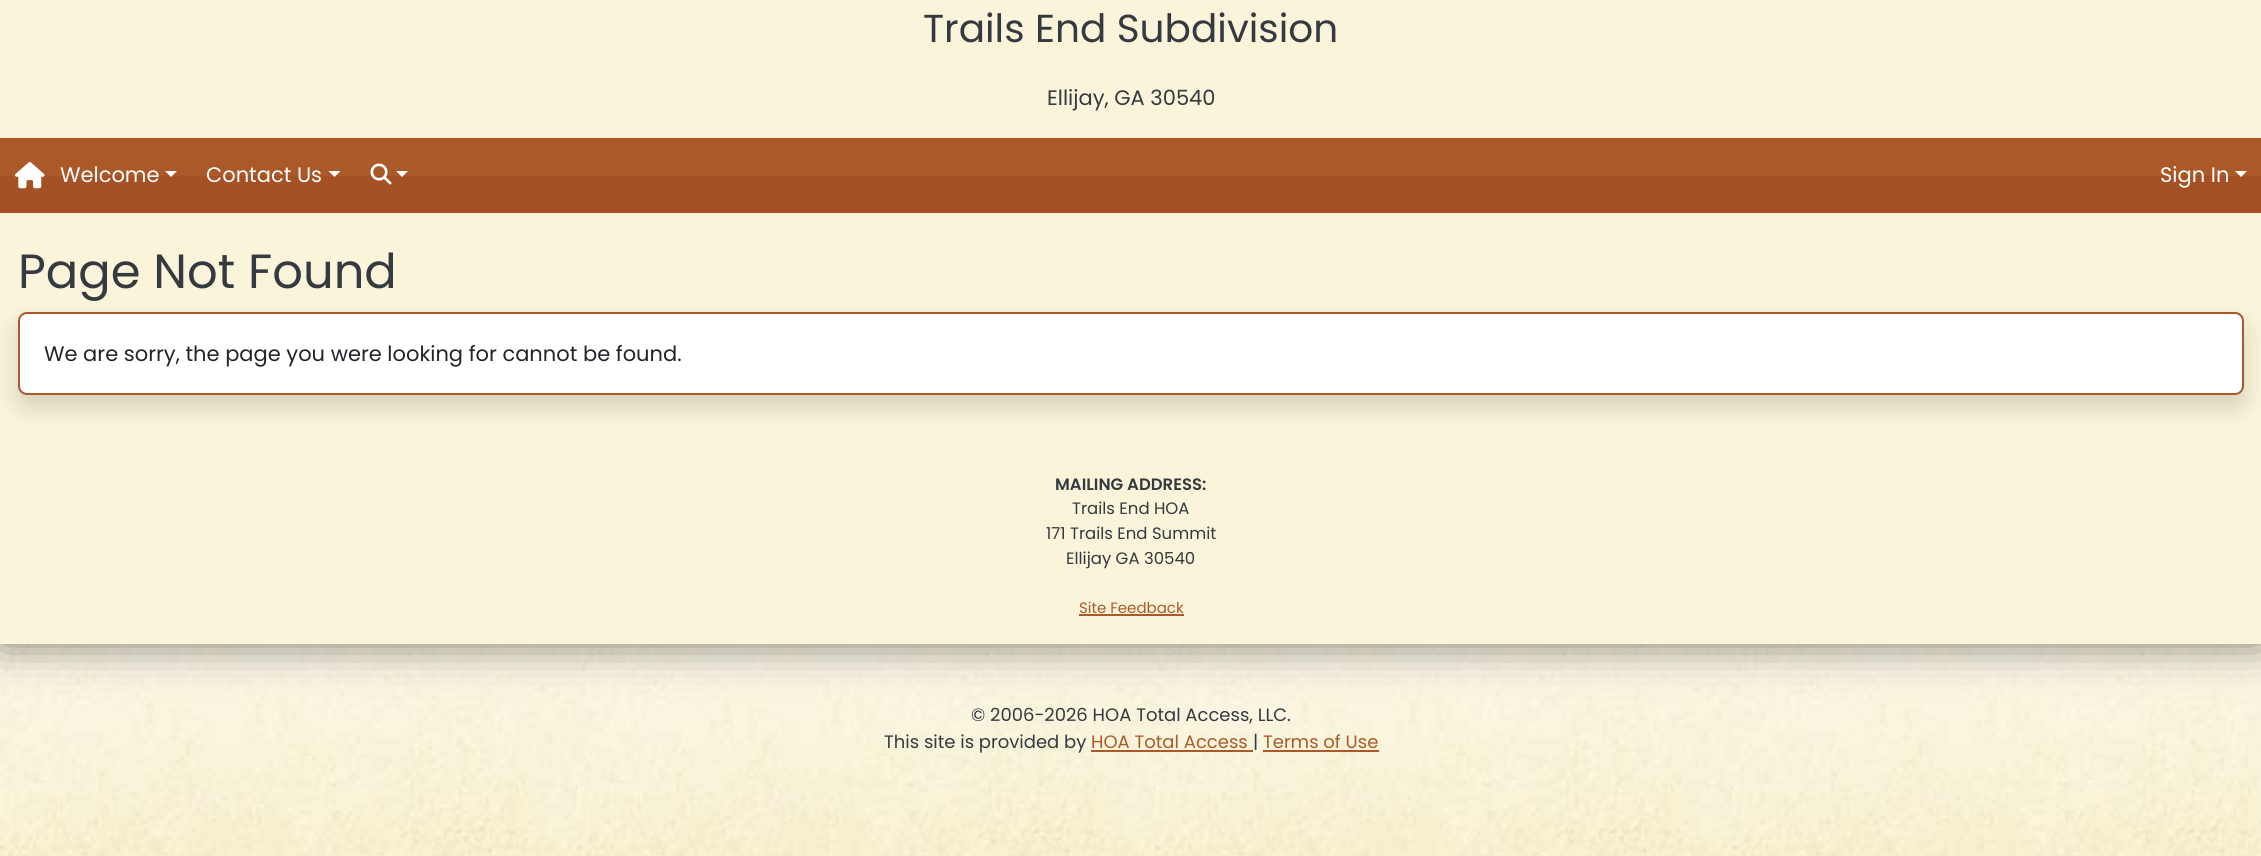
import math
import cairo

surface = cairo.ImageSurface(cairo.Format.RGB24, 2261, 856)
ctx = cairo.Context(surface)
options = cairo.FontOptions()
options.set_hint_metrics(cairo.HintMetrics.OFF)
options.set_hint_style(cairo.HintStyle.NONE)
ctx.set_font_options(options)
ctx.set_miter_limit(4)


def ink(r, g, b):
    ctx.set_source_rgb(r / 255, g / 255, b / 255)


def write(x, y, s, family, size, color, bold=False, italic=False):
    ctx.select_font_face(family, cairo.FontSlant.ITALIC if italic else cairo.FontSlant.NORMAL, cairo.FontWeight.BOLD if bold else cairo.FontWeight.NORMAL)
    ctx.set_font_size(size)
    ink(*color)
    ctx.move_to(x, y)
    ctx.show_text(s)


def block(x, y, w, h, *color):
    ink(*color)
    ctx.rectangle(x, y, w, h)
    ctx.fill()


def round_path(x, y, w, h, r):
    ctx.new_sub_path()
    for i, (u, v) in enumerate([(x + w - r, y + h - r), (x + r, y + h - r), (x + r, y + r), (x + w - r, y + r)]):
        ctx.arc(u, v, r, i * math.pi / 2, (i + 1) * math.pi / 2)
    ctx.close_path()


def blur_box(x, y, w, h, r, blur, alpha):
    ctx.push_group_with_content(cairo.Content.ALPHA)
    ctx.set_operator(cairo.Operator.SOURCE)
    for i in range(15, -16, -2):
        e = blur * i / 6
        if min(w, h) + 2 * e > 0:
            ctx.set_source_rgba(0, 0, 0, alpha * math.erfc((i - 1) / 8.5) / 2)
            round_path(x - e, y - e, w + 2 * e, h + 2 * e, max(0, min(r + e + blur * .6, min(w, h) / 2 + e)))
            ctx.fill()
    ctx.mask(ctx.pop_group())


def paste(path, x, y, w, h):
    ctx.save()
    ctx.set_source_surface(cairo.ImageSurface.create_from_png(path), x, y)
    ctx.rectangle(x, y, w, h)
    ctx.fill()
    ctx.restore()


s1 = dict(family="Poppins", size=39, color=(52, 58, 64))
s2 = dict(family="Poppins", size=21, color=(52, 58, 64))
s3 = dict(family="Poppins", size=21, color=(255, 255, 255))
s4 = dict(family="Poppins", size=48, color=(52, 58, 64))
s5 = dict(family="Poppins", size=21, color=(33, 37, 41))
s6 = dict(family="Poppins SemiBold", size=16.5, color=(52, 58, 64))
s7 = dict(family="Poppins", size=16.5, color=(52, 58, 64))
s8 = dict(family="Poppins", size=15, color=(172, 89, 42))
s9 = dict(family="Poppins", size=18, color=(52, 58, 64))
s10 = dict(family="Poppins", size=18, color=(172, 89, 42))

ink(255, 255, 255)
ctx.paint()
paste("pic1.png", 0, 644, 2261, 212)
ink(0, 0, 0)
blur_box(0, 0, 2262, 644, 0, 22.5, 0.5)
block(0, 0, 2261, 644, 250, 244, 218)
write(923, 42, "Trails End Subdivision", **s1)
write(1047, 105, "Ellijay, GA 30540", **s2)
block(0, 138, 2261, 38, 172, 89, 42)
block(0, 176, 2261, 37, 165, 81, 37)
paste("pic2.png", 15, 162, 30, 27)
write(60, 182, "Welcome", **s3)
ctx.new_path()
ctx.move_to(165, 171)
ctx.line_to(177, 171)
ctx.line_to(171, 177)
ctx.close_path()
ctx.fill()
write(206, 182, "Contact Us", **s3)
ctx.new_path()
ctx.move_to(328.5, 171)
ctx.line_to(340.5, 171)
ctx.line_to(334.5, 177)
ctx.close_path()
ctx.fill()
paste("pic3.png", 370, 163, 22, 22)
ctx.new_path()
ctx.move_to(396, 171)
ctx.line_to(408, 171)
ctx.line_to(402, 177)
ctx.close_path()
ctx.fill()
write(2160, 182, "Sign In", **s3)
ctx.new_path()
ctx.move_to(2235, 171)
ctx.line_to(2247, 171)
ctx.line_to(2241, 177)
ctx.close_path()
ctx.fill()
write(18, 288, "Page Not Found", **s4)
ink(0, 0, 0)
blur_box(18, 324, 2226, 83, 9, 12, 0.15)
ink(255, 255, 255)
round_path(19, 313, 2224, 81, 8)
ctx.fill_preserve()
ink(172, 89, 42)
ctx.stroke()
write(44, 361, "We are sorry, the page you were looking for cannot be found.", **s5)
write(1055, 490, "MAILING ADDRESS:", **s6)
write(1072, 514, "Trails End HOA", **s7)
write(1046, 539, "171 Trails End Summit", **s7)
write(1066, 564, "Ellijay GA 30540", **s7)
write(1079, 613, "Site Feedback", **s8)
block(1079, 614, 105, 2, 172, 89, 42)
write(971, 721, "© 2006-2026 HOA Total Access, LLC.", **s9)
write(884, 748, "This site is provided by", **s9)
write(1091, 748, "HOA Total Access", **s10)
block(1091, 750, 162, 2, 172, 89, 42)
write(1253, 748, "|", **s9)
write(1263, 748, "Terms of Use", **s10)
block(1263, 750, 116, 2, 172, 89, 42)
surface.write_to_png("screenshot.png")
